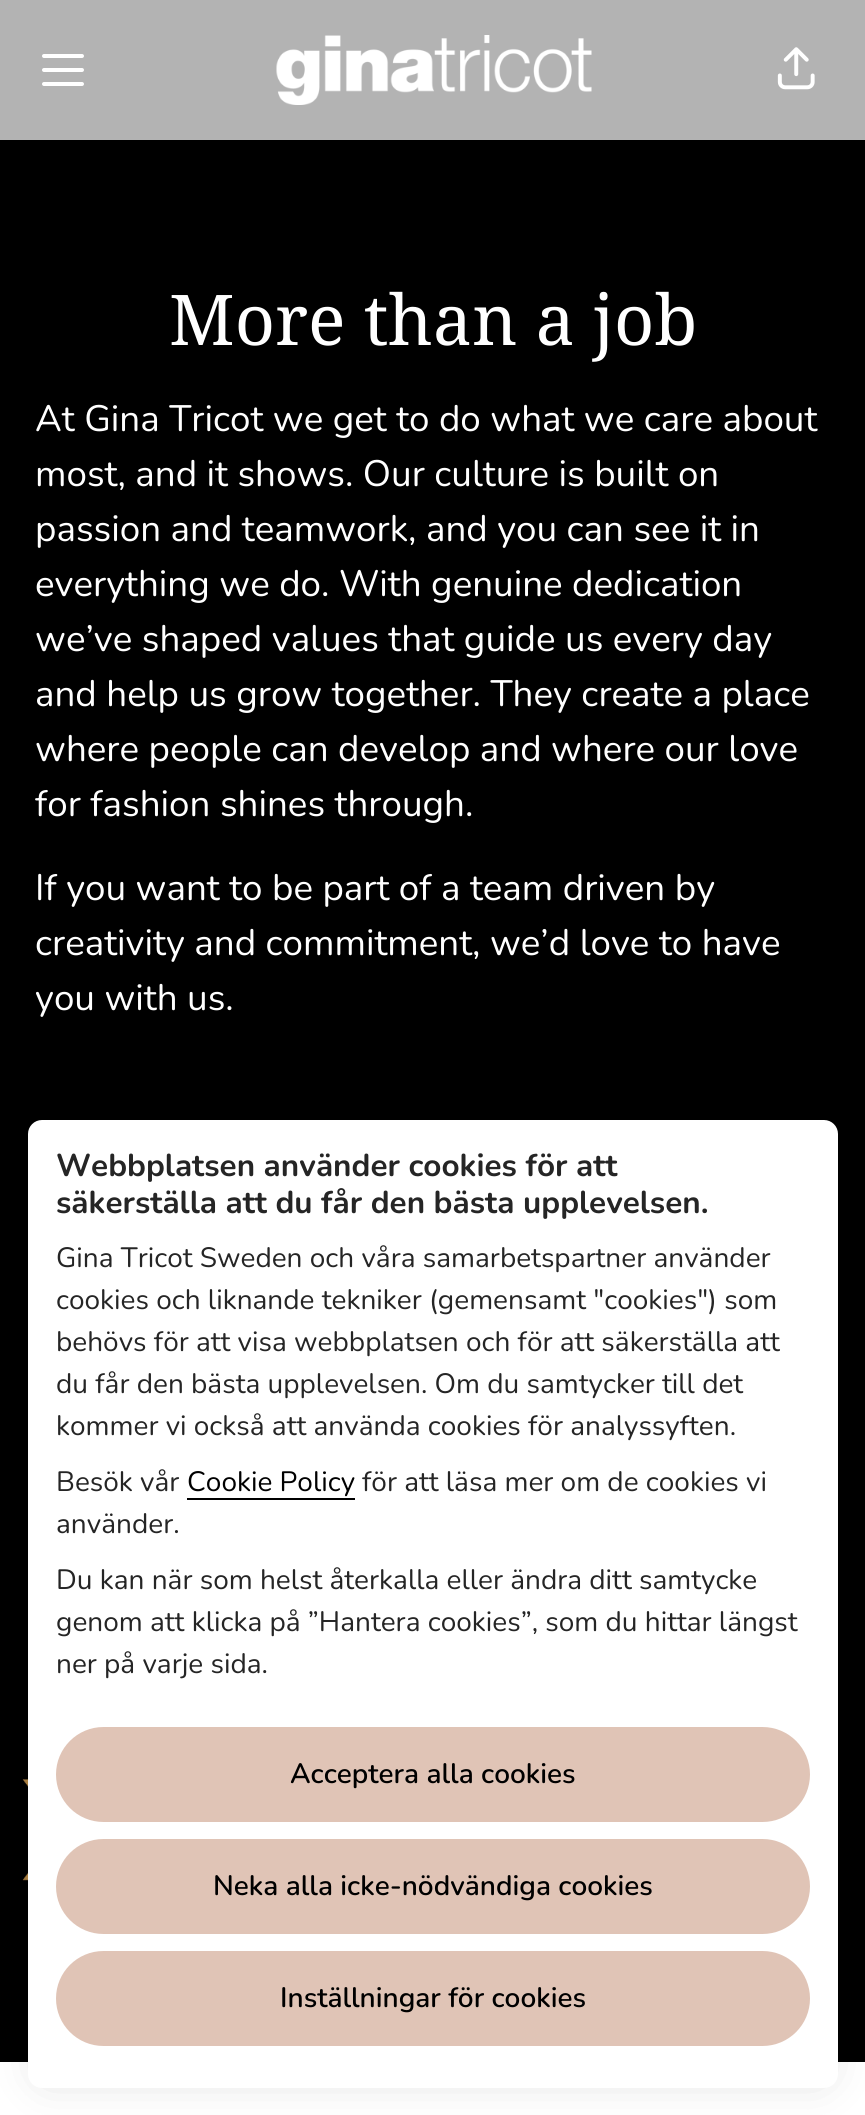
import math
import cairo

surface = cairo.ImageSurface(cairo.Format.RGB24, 865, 2115)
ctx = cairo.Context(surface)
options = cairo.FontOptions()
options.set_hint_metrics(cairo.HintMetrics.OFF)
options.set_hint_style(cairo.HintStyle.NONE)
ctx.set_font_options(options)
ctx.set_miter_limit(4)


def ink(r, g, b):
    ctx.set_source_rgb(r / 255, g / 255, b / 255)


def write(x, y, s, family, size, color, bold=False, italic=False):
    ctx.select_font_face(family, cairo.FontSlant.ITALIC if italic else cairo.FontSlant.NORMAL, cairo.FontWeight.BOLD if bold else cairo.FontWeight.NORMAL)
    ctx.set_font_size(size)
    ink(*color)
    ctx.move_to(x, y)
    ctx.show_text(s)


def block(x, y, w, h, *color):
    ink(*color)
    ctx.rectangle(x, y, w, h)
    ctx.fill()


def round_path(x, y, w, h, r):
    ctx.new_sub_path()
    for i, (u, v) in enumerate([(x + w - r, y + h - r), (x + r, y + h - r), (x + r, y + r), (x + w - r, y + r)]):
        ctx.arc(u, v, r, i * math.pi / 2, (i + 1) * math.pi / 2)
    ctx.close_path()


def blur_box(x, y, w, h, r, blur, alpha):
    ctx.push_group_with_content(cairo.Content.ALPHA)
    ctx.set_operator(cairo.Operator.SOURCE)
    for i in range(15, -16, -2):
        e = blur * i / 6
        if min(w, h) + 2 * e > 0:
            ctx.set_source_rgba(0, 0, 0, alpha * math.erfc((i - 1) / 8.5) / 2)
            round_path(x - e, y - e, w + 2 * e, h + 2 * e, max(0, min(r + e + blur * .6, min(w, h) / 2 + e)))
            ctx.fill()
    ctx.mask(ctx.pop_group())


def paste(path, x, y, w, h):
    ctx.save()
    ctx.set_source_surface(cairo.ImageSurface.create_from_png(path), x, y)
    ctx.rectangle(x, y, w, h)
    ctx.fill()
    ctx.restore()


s1 = dict(family="Droid Serif", size=70, color=(255, 255, 255))
s2 = dict(family="Nunito ExtraLight", size=36.75, color=(255, 255, 255))
s3 = dict(family="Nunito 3 ExtraLight", size=31.5, color=(37, 37, 37))
s4 = dict(family="Nunito ExtraLight", size=28, color=(37, 37, 37))
s5 = dict(family="Nunito ExtraLight", size=28, color=(0, 0, 0))
s6 = dict(family="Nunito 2 ExtraLight", size=28, color=(0, 0, 0))

ink(255, 255, 255)
ctx.paint()
block(0, 0, 865, 140, 179, 179, 179)
ink(255, 255, 255)
round_path(42, 54, 42, 4, 2)
ctx.fill()
round_path(42, 68, 42, 4, 2)
ctx.fill()
round_path(42, 82, 42, 4, 2)
ctx.fill()
paste("pic1.png", 276, 35, 316, 70)
paste("pic2.png", 777, 47, 38, 43)
block(0, 140, 865, 1922, 0, 0, 0)
write(169, 345, "More than a job", **s1)
write(35, 431, "At Gina Tricot we get to do what we care about", **s2)
write(35, 486, "most, and it shows. Our culture is built on", **s2)
write(35, 541, "passion and teamwork, and you can see it in", **s2)
write(35, 596, "everything we do. With genuine dedication", **s2)
write(35, 651, "we’ve shaped values that guide us every day", **s2)
write(35, 706, "and help us grow together. They create a place", **s2)
write(35, 761, "where people can develop and where our love", **s2)
write(35, 816, "for fashion shines through.", **s2)
write(35, 900, "If you want to be part of a team driven by", **s2)
write(35, 955, "creativity and commitment, we’d love to have", **s2)
write(35, 1010, "you with us.", **s2)
paste("pic3.png", 22, 1779, 6, 102)
ink(0, 0, 0)
blur_box(46, 1141, 775, 933, 0, 23.5, 0.18)
ink(255, 255, 255)
round_path(28, 1120, 810, 968, 14)
ctx.fill()
write(56, 1176, "Webbplatsen använder cookies för att", **s3)
write(56, 1213, "säkerställa att du får den bästa upplevelsen.", **s3)
write(56, 1267, "Gina Tricot Sweden och våra samarbetspartner använder", **s4)
write(56, 1309, "cookies och liknande tekniker (gemensamt \"cookies\") som", **s4)
write(56, 1351, "behövs för att visa webbplatsen och för att säkerställa att", **s4)
write(56, 1393, "du får den bästa upplevelsen. Om du samtycker till det", **s4)
write(56, 1435, "kommer vi också att använda cookies för analyssyften.", **s4)
write(56, 1491, "Besök vår", **s4)
write(187, 1491, "Cookie Policy", **s5)
block(187, 1498, 168, 2, 0, 0, 0)
write(362, 1491, "för att läsa mer om de cookies vi", **s4)
write(56, 1533, "använder.", **s4)
write(56, 1589, "Du kan när som helst återkalla eller ändra ditt samtycke", **s4)
write(56, 1631, "genom att klicka på ”Hantera cookies”, som du hittar längst", **s4)
write(56, 1673, "ner på varje sida.", **s4)
ink(224, 196, 182)
round_path(56, 1727, 754, 95, 47.5)
ctx.fill()
write(290, 1783, "Acceptera alla cookies", **s6)
ink(224, 196, 182)
round_path(56, 1839, 754, 95, 47.5)
ctx.fill()
write(213, 1895, "Neka alla icke-nödvändiga cookies", **s6)
ink(224, 196, 182)
round_path(56, 1951, 754, 95, 47.5)
ctx.fill()
write(280, 2007, "Inställningar för cookies", **s6)
surface.write_to_png("screenshot.png")
